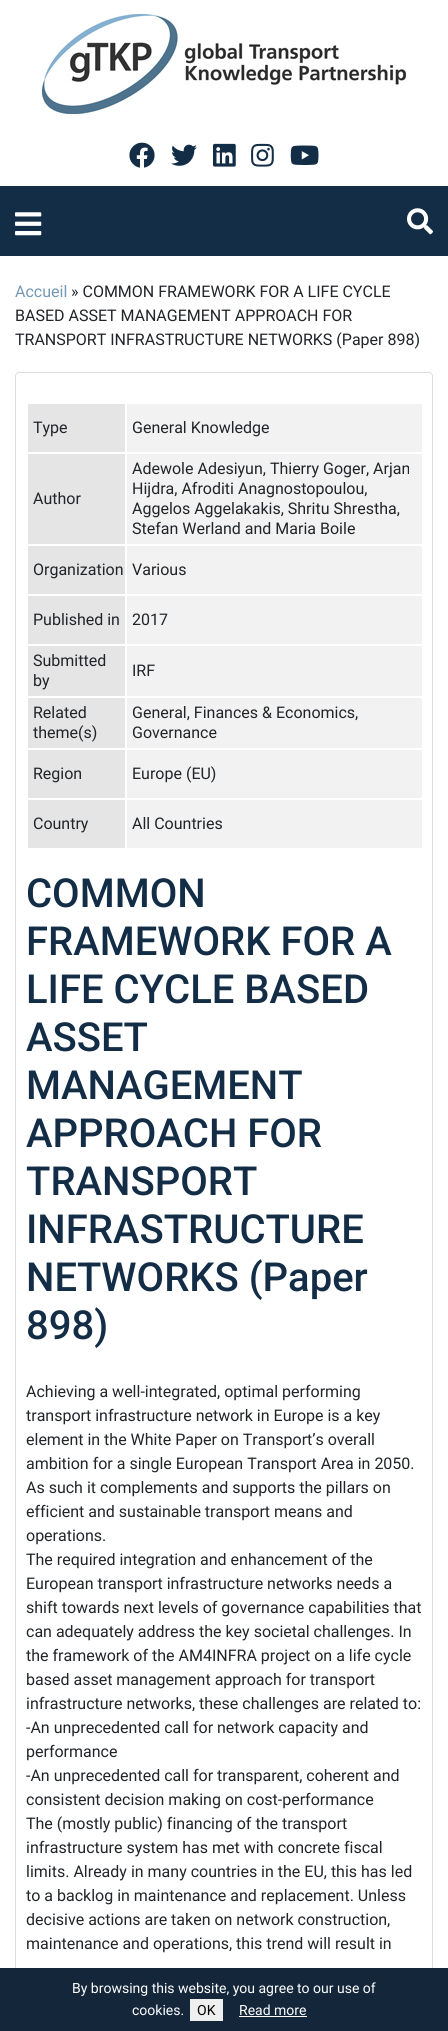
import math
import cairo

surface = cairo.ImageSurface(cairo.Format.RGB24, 448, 2031)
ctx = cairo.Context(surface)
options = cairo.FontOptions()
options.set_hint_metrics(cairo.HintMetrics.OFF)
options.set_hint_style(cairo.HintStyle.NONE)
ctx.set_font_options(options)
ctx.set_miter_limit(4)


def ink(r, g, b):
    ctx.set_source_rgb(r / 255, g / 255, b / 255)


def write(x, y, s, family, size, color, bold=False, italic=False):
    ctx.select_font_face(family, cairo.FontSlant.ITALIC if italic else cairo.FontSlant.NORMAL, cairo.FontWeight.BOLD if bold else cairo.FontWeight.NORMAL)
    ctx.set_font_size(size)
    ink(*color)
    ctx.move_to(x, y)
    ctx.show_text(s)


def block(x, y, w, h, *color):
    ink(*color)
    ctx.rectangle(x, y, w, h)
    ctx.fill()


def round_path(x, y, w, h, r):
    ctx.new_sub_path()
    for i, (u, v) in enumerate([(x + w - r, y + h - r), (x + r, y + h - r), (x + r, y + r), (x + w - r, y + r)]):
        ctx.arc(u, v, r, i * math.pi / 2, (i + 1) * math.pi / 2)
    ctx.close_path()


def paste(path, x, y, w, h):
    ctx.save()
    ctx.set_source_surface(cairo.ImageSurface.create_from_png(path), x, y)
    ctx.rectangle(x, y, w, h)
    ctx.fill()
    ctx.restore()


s1 = dict(family="Roboto", size=16, color=(114, 152, 181))
s2 = dict(family="Roboto", size=16, color=(33, 37, 41))
s3 = dict(family="Roboto Medium", size=40, color=(19, 45, 71))
s4 = dict(family="Roboto", size=14, color=(255, 255, 255))
s5 = dict(family="Roboto", size=14, color=(0, 0, 0))

ink(255, 255, 255)
ctx.paint()
paste("pic1.png", 42, 14, 364, 100)
paste("pic2.png", 129, 142, 26, 26)
paste("pic3.png", 171, 144, 26, 22)
paste("pic4.png", 213, 143, 23, 24)
paste("pic5.png", 251, 143, 23, 24)
paste("pic6.png", 290, 145, 29, 20)
block(0, 186, 448, 70, 19, 45, 71)
paste("pic7.png", 15, 212, 27, 24)
paste("pic8.png", 407, 208, 26, 27)
write(15, 297, "Accueil", **s1)
write(71, 297, "» COMMON FRAMEWORK FOR A LIFE CYCLE", **s2)
write(15, 321, "BASED ASSET MANAGEMENT APPROACH FOR", **s2)
write(15, 345, "TRANSPORT INFRASTRUCTURE NETWORKS (Paper 898)", **s2)
round_path(15.5, 372.5, 417, 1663, 3.5)
ink(221, 221, 221)
ctx.set_line_width(1)
ctx.stroke()
block(28, 404, 97, 48, 229, 229, 229)
write(33, 433, "Type", **s2)
block(127, 404, 295, 48, 242, 242, 242)
write(132, 433, "General Knowledge", **s2)
block(28, 454, 97, 90, 229, 229, 229)
write(33, 504, "Author", **s2)
block(127, 454, 295, 90, 242, 242, 242)
write(132, 474, "Adewole Adesiyun, Thierry Goger, Arjan", **s2)
write(132, 494, "Hijdra, Afroditi Anagnostopoulou,", **s2)
write(132, 514, "Aggelos Aggelakakis, Shritu Shrestha,", **s2)
write(132, 534, "Stefan Werland and Maria Boile", **s2)
block(28, 546, 97, 48, 229, 229, 229)
write(33, 575, "Organization", **s2)
block(127, 546, 295, 48, 242, 242, 242)
write(132, 575, "Various", **s2)
block(28, 596, 97, 48, 229, 229, 229)
write(33, 625, "Published in", **s2)
block(127, 596, 295, 48, 242, 242, 242)
write(132, 625, "2017", **s2)
block(28, 646, 97, 50, 229, 229, 229)
write(33, 666, "Submitted", **s2)
write(33, 686, "by", **s2)
block(127, 646, 295, 50, 242, 242, 242)
write(132, 676, "IRF", **s2)
block(28, 698, 97, 50, 229, 229, 229)
write(33, 718, "Related", **s2)
write(33, 738, "theme(s)", **s2)
block(127, 698, 295, 50, 242, 242, 242)
write(132, 718, "General, Finances & Economics,", **s2)
write(132, 738, "Governance", **s2)
block(28, 750, 97, 48, 229, 229, 229)
write(33, 779, "Region", **s2)
block(127, 750, 295, 48, 242, 242, 242)
write(132, 779, "Europe (EU)", **s2)
block(28, 800, 97, 48, 229, 229, 229)
write(33, 829, "Country", **s2)
block(127, 800, 295, 48, 242, 242, 242)
write(132, 829, "All Countries", **s2)
write(26, 907, "COMMON", **s3)
write(26, 955, "FRAMEWORK FOR A", **s3)
write(26, 1003, "LIFE CYCLE BASED", **s3)
write(26, 1051, "ASSET", **s3)
write(26, 1099, "MANAGEMENT", **s3)
write(26, 1147, "APPROACH FOR", **s3)
write(26, 1195, "TRANSPORT", **s3)
write(26, 1243, "INFRASTRUCTURE", **s3)
write(26, 1291, "NETWORKS (Paper", **s3)
write(26, 1339, "898)", **s3)
write(26, 1397, "Achieving a well-integrated, optimal performing", **s2)
write(26, 1421, "transport infrastructure network in Europe is a key", **s2)
write(26, 1445, "element in the White Paper on Transport’s overall", **s2)
write(26, 1469, "ambition for a single European Transport Area in 2050.", **s2)
write(26, 1493, "As such it complements and supports the pillars on", **s2)
write(26, 1517, "efficient and sustainable transport means and", **s2)
write(26, 1541, "operations.", **s2)
write(26, 1565, "The required integration and enhancement of the", **s2)
write(26, 1589, "European transport infrastructure networks needs a", **s2)
write(26, 1613, "shift towards next levels of governance capabilities that", **s2)
write(26, 1637, "can adequately address the key societal challenges. In", **s2)
write(26, 1661, "the framework of the AM4INFRA project on a life cycle", **s2)
write(26, 1685, "based asset management approach for transport", **s2)
write(26, 1709, "infrastructure networks, these challenges are related to:", **s2)
write(26, 1733, "-An unprecedented call for network capacity and", **s2)
write(26, 1757, "performance", **s2)
write(26, 1781, "-An unprecedented call for transparent, coherent and", **s2)
write(26, 1805, "consistent decision making on cost-performance", **s2)
write(26, 1829, "The (mostly public) financing of the transport", **s2)
write(26, 1853, "infrastructure system has met with concrete fiscal", **s2)
write(26, 1877, "limits. Already in many countries in the EU, this has led", **s2)
write(26, 1901, "to a backlog in maintenance and replacement. Unless", **s2)
write(26, 1925, "decisive actions are taken on network construction,", **s2)
write(26, 1949, "maintenance and operations, this trend will result in", **s2)
block(0, 1968, 448, 63, 19, 38, 58)
write(72, 1993, "By browsing this website, you agree to our use of", **s4)
write(132, 2015, "cookies.", **s4)
block(190, 1999, 33, 22, 239, 239, 239)
write(197, 2015, "OK", **s5)
write(239, 2015, "Read more", **s4)
block(239, 2016, 68, 1, 255, 255, 255)
surface.write_to_png("screenshot.png")
